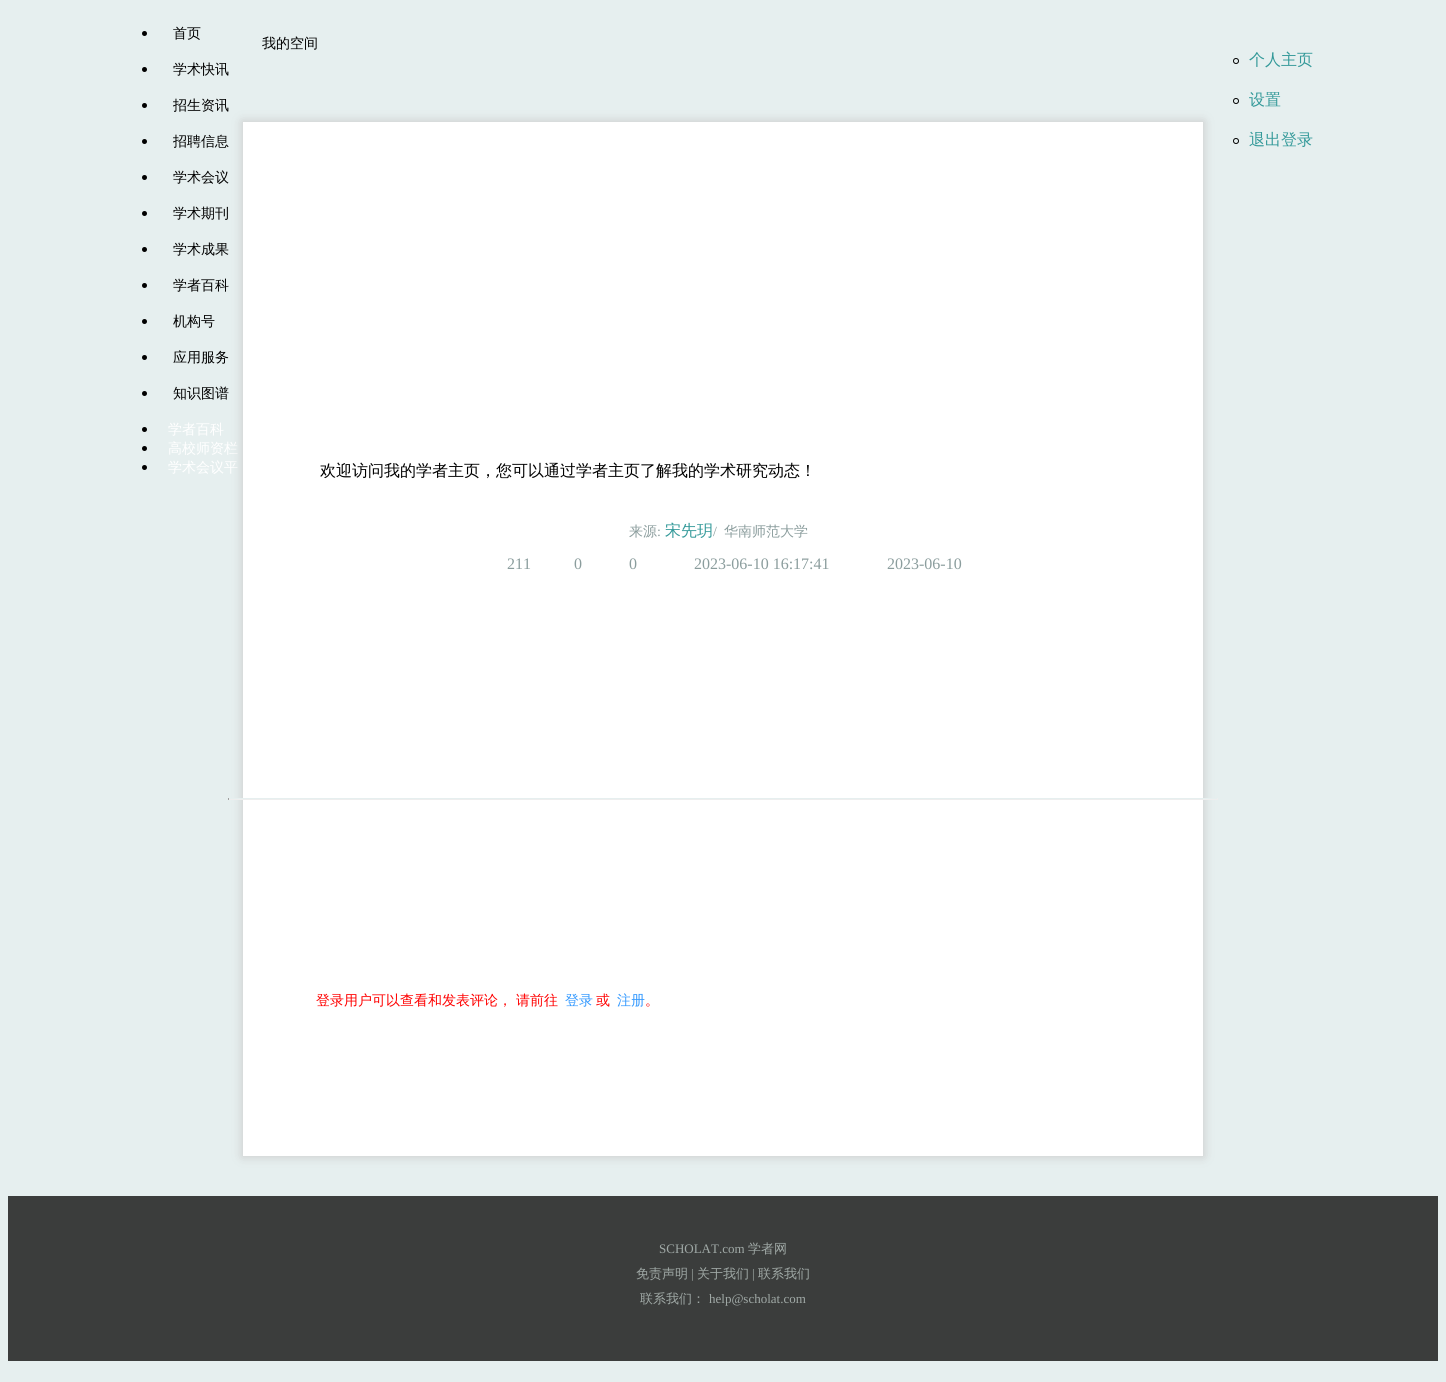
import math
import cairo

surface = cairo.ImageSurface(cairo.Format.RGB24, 1446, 1382)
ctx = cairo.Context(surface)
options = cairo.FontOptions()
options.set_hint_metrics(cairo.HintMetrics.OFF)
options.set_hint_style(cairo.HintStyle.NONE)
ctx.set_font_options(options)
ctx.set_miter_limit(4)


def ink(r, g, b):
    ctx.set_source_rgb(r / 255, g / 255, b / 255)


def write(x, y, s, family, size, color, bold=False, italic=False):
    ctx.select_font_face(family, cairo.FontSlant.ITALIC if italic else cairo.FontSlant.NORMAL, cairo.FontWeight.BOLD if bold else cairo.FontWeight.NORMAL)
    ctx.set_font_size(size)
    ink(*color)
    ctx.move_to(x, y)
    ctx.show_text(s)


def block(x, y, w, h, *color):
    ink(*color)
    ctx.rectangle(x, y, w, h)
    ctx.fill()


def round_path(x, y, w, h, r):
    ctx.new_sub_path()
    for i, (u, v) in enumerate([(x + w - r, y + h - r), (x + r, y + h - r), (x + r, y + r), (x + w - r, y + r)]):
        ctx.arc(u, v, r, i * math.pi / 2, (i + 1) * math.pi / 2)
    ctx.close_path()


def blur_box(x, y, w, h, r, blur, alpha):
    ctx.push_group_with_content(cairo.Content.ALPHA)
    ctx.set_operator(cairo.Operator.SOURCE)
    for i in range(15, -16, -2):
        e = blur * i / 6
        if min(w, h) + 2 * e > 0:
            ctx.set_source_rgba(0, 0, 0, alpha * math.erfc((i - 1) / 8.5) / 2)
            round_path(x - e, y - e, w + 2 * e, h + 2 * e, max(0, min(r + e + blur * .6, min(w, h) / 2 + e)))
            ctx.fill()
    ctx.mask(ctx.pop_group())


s1 = dict(family="WenQuanYi Zen Hei Medium", size=14, color=(0, 0, 0))
s2 = dict(family="WenQuanYi Zen Hei Medium", size=14, color=(255, 255, 255))
s3 = dict(family="WenQuanYi Zen Hei Medium", size=16, color=(51, 153, 153))
s4 = dict(family="WenQuanYi Zen Hei Medium", size=16, color=(0, 0, 0))
s5 = dict(family="WenQuanYi Zen Hei Medium", size=14, color=(255, 0, 0))
s6 = dict(family="WenQuanYi Zen Hei Medium", size=14, color=(51, 153, 255))
s7 = dict(family="WenQuanYi Zen Hei Medium", size=14, color=(139, 157, 157))
s8 = dict(family="Liberation Serif", size=14, color=(139, 157, 157))
s9 = dict(family="Liberation Serif", size=16, color=(139, 157, 157))
s10 = dict(family="Liberation Serif", size=13, color=(160, 169, 166))
s11 = dict(family="WenQuanYi Zen Hei Medium", size=13, color=(160, 169, 166))

ink(230, 239, 239)
ctx.paint()
ink(0, 0, 0)
ctx.arc(144.5, 33.5, 2.5, 0, 2 * math.pi)
ctx.fill()
write(173, 38, "首页", **s1)
ctx.new_path()
ctx.arc(144.5, 69.5, 2.5, 0, 2 * math.pi)
ctx.fill()
write(173, 74, "学术快讯", **s1)
ctx.new_path()
ctx.arc(144.5, 105.5, 2.5, 0, 2 * math.pi)
ctx.fill()
write(173, 110, "招生资讯", **s1)
ctx.new_path()
ctx.arc(144.5, 141.5, 2.5, 0, 2 * math.pi)
ctx.fill()
write(173, 146, "招聘信息", **s1)
ctx.new_path()
ctx.arc(144.5, 177.5, 2.5, 0, 2 * math.pi)
ctx.fill()
write(173, 182, "学术会议", **s1)
ctx.new_path()
ctx.arc(144.5, 213.5, 2.5, 0, 2 * math.pi)
ctx.fill()
write(173, 218, "学术期刊", **s1)
ctx.new_path()
ctx.arc(144.5, 249.5, 2.5, 0, 2 * math.pi)
ctx.fill()
write(173, 254, "学术成果", **s1)
ctx.new_path()
ctx.arc(144.5, 285.5, 2.5, 0, 2 * math.pi)
ctx.fill()
write(173, 290, "学者百科", **s1)
ctx.new_path()
ctx.arc(144.5, 321.5, 2.5, 0, 2 * math.pi)
ctx.fill()
write(173, 326, "机构号", **s1)
ctx.new_path()
ctx.arc(144.5, 357.5, 2.5, 0, 2 * math.pi)
ctx.fill()
write(173, 362, "应用服务", **s1)
ctx.new_path()
ctx.arc(144.5, 393.5, 2.5, 0, 2 * math.pi)
ctx.fill()
write(173, 398, "知识图谱", **s1)
ctx.new_path()
ctx.arc(144.5, 429.5, 2.5, 0, 2 * math.pi)
ctx.fill()
write(168, 434, "学者百科", **s2)
ink(0, 0, 0)
ctx.new_path()
ctx.arc(144.5, 448.5, 2.5, 0, 2 * math.pi)
ctx.fill()
write(168, 453, "高校师资栏", **s2)
ink(0, 0, 0)
ctx.new_path()
ctx.arc(144.5, 467.5, 2.5, 0, 2 * math.pi)
ctx.fill()
write(168, 472, "学术会议平", **s2)
write(262, 48, "我的空间", **s1)
ctx.new_path()
ctx.arc(1236, 61, 2.5, 0, 2 * math.pi)
ctx.set_line_width(1)
ctx.stroke()
write(1249, 65, "个人主页", **s3)
ctx.new_path()
ctx.arc(1236, 101, 2.5, 0, 2 * math.pi)
ink(0, 0, 0)
ctx.stroke()
write(1249, 105, "设置", **s3)
ctx.new_path()
ctx.arc(1236, 141, 2.5, 0, 2 * math.pi)
ink(0, 0, 0)
ctx.stroke()
write(1249, 145, "退出登录", **s3)
ink(204, 204, 204)
blur_box(242, 121, 962, 1036, 0, 5, 1)
block(243, 122, 960, 1034, 255, 255, 255)
write(320, 476, "欢迎访问我的学者主页，您可以通过学者主页了解我的学术研究动态！", **s4)
block(228, 798, 990, 1, 230, 239, 239)
block(1217, 798, 1, 2, 238, 238, 238)
block(228, 799, 990, 1, 238, 238, 238)
block(228, 798, 1, 2, 159, 159, 159)
write(316, 1005, "登录用户可以查看和发表评论，", **s5)
write(516, 1005, "请前往", **s5)
write(565, 1005, "登录", **s6)
write(596, 1005, "或", **s5)
write(617, 1005, "注册", **s6)
write(645, 1005, "。", **s5)
write(629, 536, "来源", **s7)
write(657, 536, ":", **s8)
write(665, 536, "宋先玥", **s3)
write(713, 536, "/", **s8)
write(724, 536, "华南师范大学", **s7)
write(507, 569, "211", **s9)
write(574, 569, "0", **s9)
write(629, 569, "0", **s9)
write(694, 569, "2023-06-10 16:17:41", **s9)
write(887, 569, "2023-06-10", **s9)
block(8, 1196, 1430, 165, 59, 61, 60)
write(659, 1253, "SCHOLAT.com", **s10)
write(748, 1253, "学者网", **s11)
write(636, 1278, "免责声明", **s11)
write(691, 1278, "|", **s10)
write(697, 1278, "关于我们", **s11)
write(752, 1278, "|", **s10)
write(758, 1278, "联系我们", **s11)
write(640, 1303, "联系我们：", **s11)
write(709, 1303, "help@scholat.com", **s10)
surface.write_to_png("screenshot.png")
